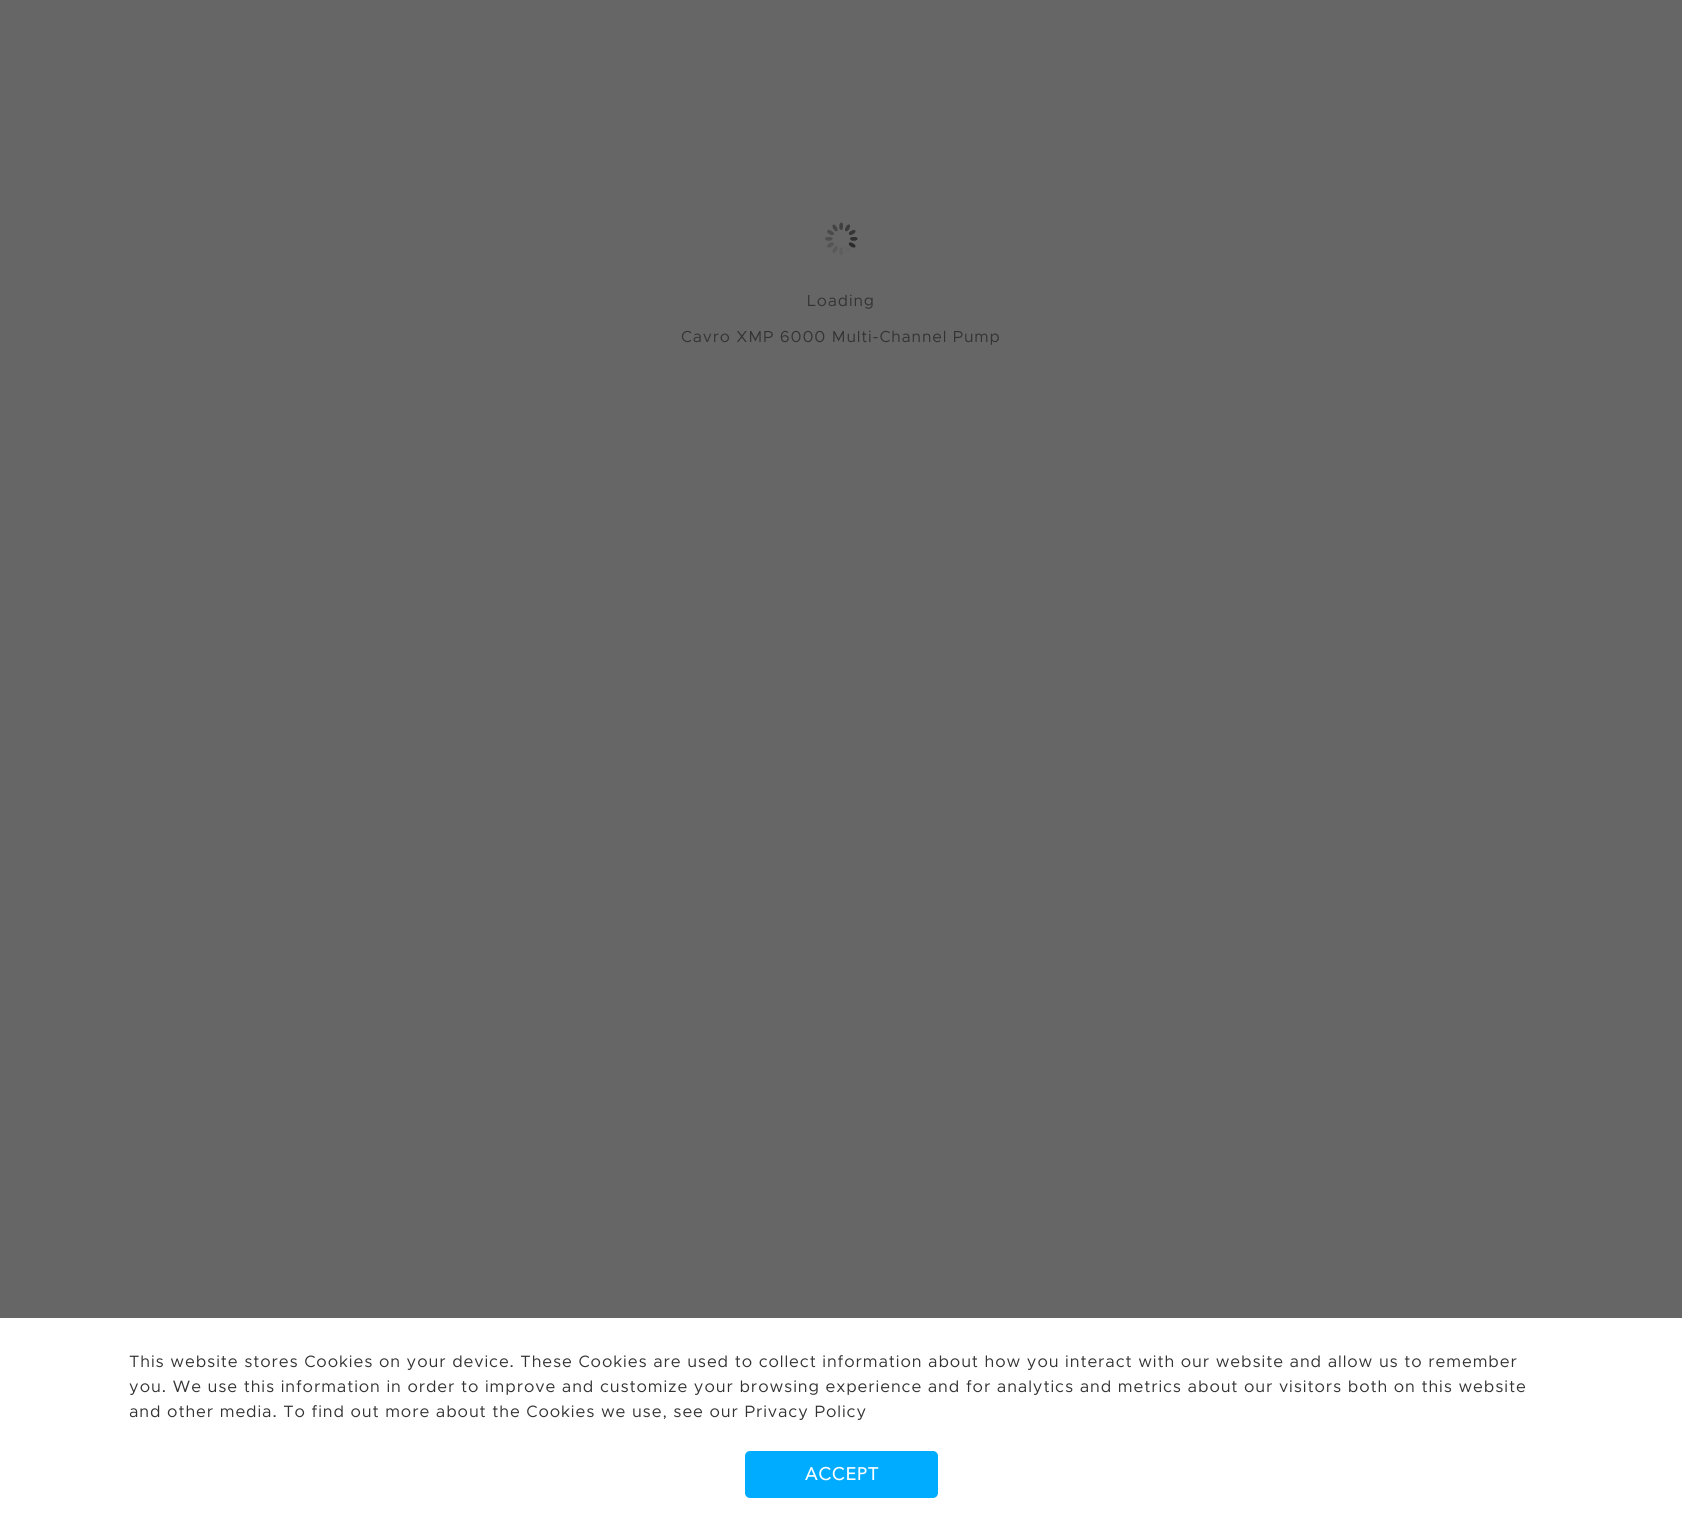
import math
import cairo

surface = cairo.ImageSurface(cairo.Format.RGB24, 1682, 1530)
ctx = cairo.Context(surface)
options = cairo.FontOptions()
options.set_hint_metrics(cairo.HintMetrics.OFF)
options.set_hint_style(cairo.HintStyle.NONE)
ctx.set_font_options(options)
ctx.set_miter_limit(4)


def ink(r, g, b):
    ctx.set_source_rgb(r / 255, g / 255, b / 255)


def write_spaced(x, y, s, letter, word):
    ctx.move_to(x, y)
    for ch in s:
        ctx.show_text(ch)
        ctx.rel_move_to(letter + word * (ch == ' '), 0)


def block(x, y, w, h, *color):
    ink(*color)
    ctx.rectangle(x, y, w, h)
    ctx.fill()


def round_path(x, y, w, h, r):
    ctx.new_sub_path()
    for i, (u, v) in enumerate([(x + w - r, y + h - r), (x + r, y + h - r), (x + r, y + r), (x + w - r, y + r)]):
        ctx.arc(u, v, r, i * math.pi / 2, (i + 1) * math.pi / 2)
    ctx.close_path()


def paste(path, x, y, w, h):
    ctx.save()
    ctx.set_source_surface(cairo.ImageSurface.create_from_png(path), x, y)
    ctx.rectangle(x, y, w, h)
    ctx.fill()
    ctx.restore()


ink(102, 102, 102)
ctx.paint()
paste("pic1.png", 825, 222, 33, 33)
ctx.select_font_face("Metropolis")
ctx.set_font_size(16)
ink(51, 51, 51)
write_spaced(807, 306, "Loading", 0.9, 0)
write_spaced(681, 342, "Cavro XMP 6000 Multi-Channel Pump", 0.9, 0)
block(0, 1318, 1682, 212, 255, 255, 255)
ctx.set_font_size(16.5)
ink(51, 51, 51)
write_spaced(129, 1367, "This website stores Cookies on your device. These Cookies are used to collect information about how you interact with our website and allow us to remember", 0.9, 0)
write_spaced(129, 1392, "you. We use this information in order to improve and customize your browsing experience and for analytics and metrics about our visitors both on this website", 0.9, 0)
write_spaced(129, 1417, "and other media. To find out more about the Cookies we use, see our Privacy Policy", 0.9, 0)
ink(0, 172, 255)
round_path(745, 1451, 193, 47, 5)
ctx.fill()
ctx.select_font_face("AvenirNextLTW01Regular", cairo.FontSlant.NORMAL, cairo.FontWeight.BOLD)
ctx.set_font_size(17.5)
ink(255, 255, 255)
write_spaced(805, 1480, "ACCEPT", 1, 0)
surface.write_to_png("screenshot.png")
